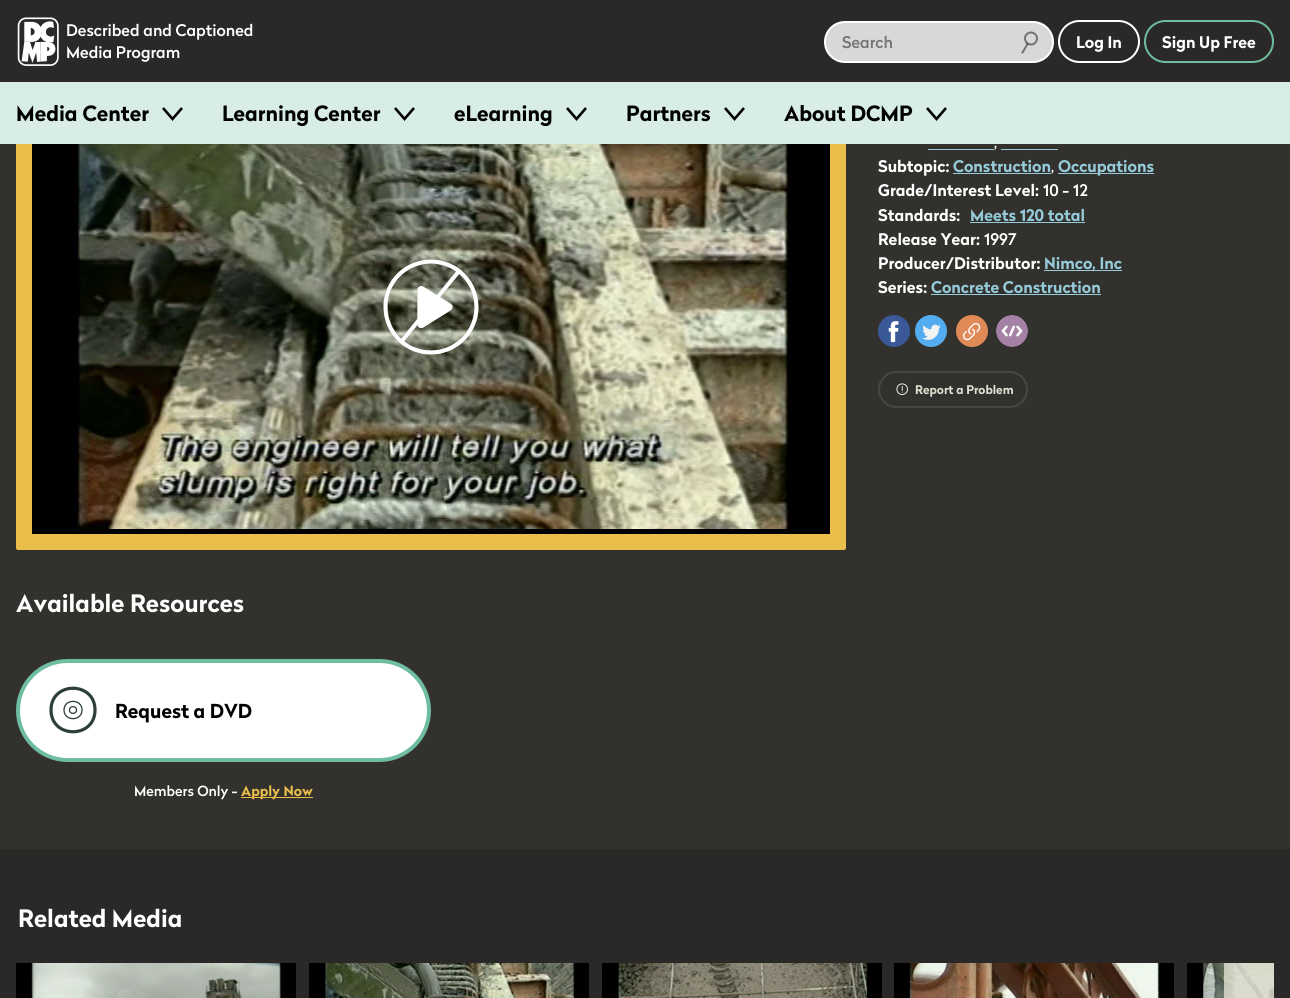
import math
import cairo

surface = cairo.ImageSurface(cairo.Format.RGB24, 1290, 998)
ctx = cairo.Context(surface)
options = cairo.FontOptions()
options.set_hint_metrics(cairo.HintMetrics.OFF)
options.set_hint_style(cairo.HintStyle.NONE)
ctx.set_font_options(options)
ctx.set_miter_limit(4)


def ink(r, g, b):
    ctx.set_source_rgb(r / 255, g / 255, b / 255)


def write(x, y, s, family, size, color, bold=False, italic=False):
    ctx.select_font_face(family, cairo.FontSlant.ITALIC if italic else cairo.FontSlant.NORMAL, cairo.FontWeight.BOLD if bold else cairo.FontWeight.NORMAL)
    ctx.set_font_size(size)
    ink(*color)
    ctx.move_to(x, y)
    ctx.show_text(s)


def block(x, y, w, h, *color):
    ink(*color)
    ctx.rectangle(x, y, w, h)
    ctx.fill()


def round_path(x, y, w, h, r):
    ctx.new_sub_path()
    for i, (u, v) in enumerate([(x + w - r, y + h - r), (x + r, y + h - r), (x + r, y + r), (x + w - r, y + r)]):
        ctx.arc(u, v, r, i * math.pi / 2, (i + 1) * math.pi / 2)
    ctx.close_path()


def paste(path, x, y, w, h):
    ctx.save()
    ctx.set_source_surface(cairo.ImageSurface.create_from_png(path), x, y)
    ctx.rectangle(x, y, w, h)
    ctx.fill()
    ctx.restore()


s1 = dict(family="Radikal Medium", size=16, color=(255, 255, 255))
s2 = dict(family="Radikal Medium", size=16, color=(117, 117, 117))
s3 = dict(family="Radikal", size=16, color=(255, 255, 255), bold=True)
s4 = dict(family="Radikal", size=21, color=(1, 1, 1), bold=True)
s5 = dict(family="Radikal", size=16, color=(149, 202, 216), bold=True)
s6 = dict(family="Radikal", size=12, color=(223, 224, 209), bold=True)
s7 = dict(family="Radikal", size=24, color=(255, 255, 255), bold=True)
s8 = dict(family="Radikal", size=19.25, color=(1, 1, 1), bold=True)
s9 = dict(family="Radikal Medium", size=14, color=(255, 255, 255))
s10 = dict(family="Radikal", size=14, color=(235, 190, 75), bold=True)

ink(50, 49, 46)
ctx.paint()
ink(235, 190, 75)
round_path(16, -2, 830, 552, 2)
ctx.fill()
block(0, 0, 1290, 82, 43, 41, 39)
paste("pic1.png", 17, 17, 42, 49)
write(66, 36, "Described and Captioned", **s1)
write(66, 58, "Media Program", **s1)
ink(216, 216, 216)
round_path(825, 22, 228, 40, 20)
ctx.fill_preserve()
ink(255, 255, 255)
ctx.stroke()
write(842, 48, "Search", **s2)
ctx.new_path()
ctx.arc(1031, 38.5, 6, 0, 2 * math.pi)
ink(116, 114, 113)
ctx.stroke()
ctx.new_path()
ctx.move_to(1027.5, 44)
ctx.line_to(1022.5, 52.5)
ctx.set_source_rgba(0.169, 0.161, 0.153, 0.58)
ctx.set_line_cap(cairo.LineCap.SQUARE)
ctx.stroke()
round_path(1059, 21, 80, 41, 20.5)
ink(255, 255, 255)
ctx.set_line_cap(cairo.LineCap.BUTT)
ctx.stroke()
write(1076, 48, "Log In", **s3)
round_path(1145, 21, 128, 41, 20.5)
ink(110, 189, 160)
ctx.stroke()
write(1162, 48, "Sign Up Free", **s3)
block(0, 82, 1290, 62, 215, 237, 229)
write(16, 121, "Media Center", **s4)
ctx.new_path()
ctx.move_to(163, 108)
ctx.line_to(172.5, 119)
ctx.line_to(182, 108)
ctx.set_line_width(2.6)
ctx.stroke()
write(222, 121, "Learning Center", **s4)
ctx.new_path()
ctx.move_to(395, 108)
ctx.line_to(404.5, 119)
ctx.line_to(414, 108)
ctx.stroke()
write(454, 121, "eLearning", **s4)
ctx.new_path()
ctx.move_to(567, 108)
ctx.line_to(576.5, 119)
ctx.line_to(586, 108)
ctx.stroke()
write(626, 121, "Partners", **s4)
ctx.new_path()
ctx.move_to(725, 108)
ctx.line_to(734.5, 119)
ctx.line_to(744, 108)
ctx.stroke()
write(784, 121, "About DCMP", **s4)
ctx.new_path()
ctx.move_to(927, 108)
ctx.line_to(936.5, 119)
ctx.line_to(946, 108)
ctx.stroke()
block(32, 144, 798, 390, 0, 0, 0)
paste("pic2.png", 74, 144, 716, 385)
paste("pic3.png", 383, 259, 96, 96)
block(928, 149, 66, 1, 149, 202, 216)
write(994, 148, ",", **s1)
block(1001, 149, 57, 1, 149, 202, 216)
write(878, 172, "Subtopic:", **s3)
write(953, 172, "Construction", **s5)
block(953, 173, 98, 1, 149, 202, 216)
write(1051, 172, ",", **s1)
block(1058, 173, 96, 1, 149, 202, 216)
write(1058, 172, "Occupations", **s5)
write(878, 196, "Grade/Interest Level:", **s3)
write(1043, 196, "10 - 12", **s1)
write(878, 221, "Standards:", **s3)
write(970, 221, "Meets 120 total", **s5)
block(970, 222, 115, 1, 149, 202, 216)
write(878, 245, "Release Year:", **s3)
write(984, 245, "1997", **s1)
write(878, 269, "Producer/Distributor:", **s3)
block(1044, 270, 78, 1, 149, 202, 216)
write(1044, 269, "Nimco, Inc", **s5)
write(878, 293, "Series:", **s3)
write(931, 293, "Concrete Construction", **s5)
block(931, 294, 170, 1, 149, 202, 216)
paste("pic4.png", 878, 315, 32, 32)
paste("pic5.png", 915, 315, 32, 32)
ink(224, 138, 87)
ctx.arc(972, 331, 16, 0, 2 * math.pi)
ctx.fill()
paste("pic6.png", 963, 323, 18, 18)
paste("pic7.png", 996, 315, 32, 32)
round_path(879, 372, 148, 35, 17.5)
ink(72, 70, 68)
ctx.set_line_width(2)
ctx.stroke()
paste("pic8.png", 896, 383, 12, 12)
write(915, 394, "Report a Problem", **s6)
write(16, 612, "Available Resources", **s7)
round_path(18, 661, 411, 99, 49.5)
ctx.fill_preserve()
ink(110, 189, 160)
ctx.set_line_width(4)
ctx.stroke()
ctx.new_path()
ctx.move_to(95, 710)
ctx.curve_to(95, 739, 51, 739, 51, 710)
ctx.curve_to(51, 681, 95, 681, 95, 710)
ctx.close_path()
ink(45, 62, 60)
ctx.set_line_width(3.2)
ctx.stroke()
ctx.new_path()
ctx.move_to(82, 710)
ctx.curve_to(82, 721.5, 64, 721.5, 64, 710)
ctx.curve_to(64, 698.5, 82, 698.5, 82, 710)
ctx.close_path()
ctx.move_to(76.5, 710)
ctx.curve_to(76.5, 714.5, 69.5, 714.5, 69.5, 710)
ctx.curve_to(69.5, 705.5, 76.5, 705.5, 76.5, 710)
ctx.close_path()
ctx.set_line_width(1.3)
ctx.stroke()
write(115, 718, "Request a DVD", **s8)
write(134, 796, "Members Only -", **s9)
block(241, 797, 72, 1, 235, 190, 75)
write(241, 796, "Apply Now", **s10)
block(0, 849, 1290, 149, 43, 41, 39)
write(18, 927, "Related Media", **s7)
paste("pic9.png", 16, 963, 280, 35)
paste("pic10.png", 309, 963, 280, 35)
paste("pic11.png", 602, 963, 280, 35)
paste("pic12.png", 894, 963, 280, 35)
paste("pic13.png", 1187, 963, 87, 35)
ctx.set_source_rgba(0.875, 0.878, 0.816, 0.8)
ctx.rectangle(1224, 963, 50, 35)
ctx.fill()
surface.write_to_png("screenshot.png")
